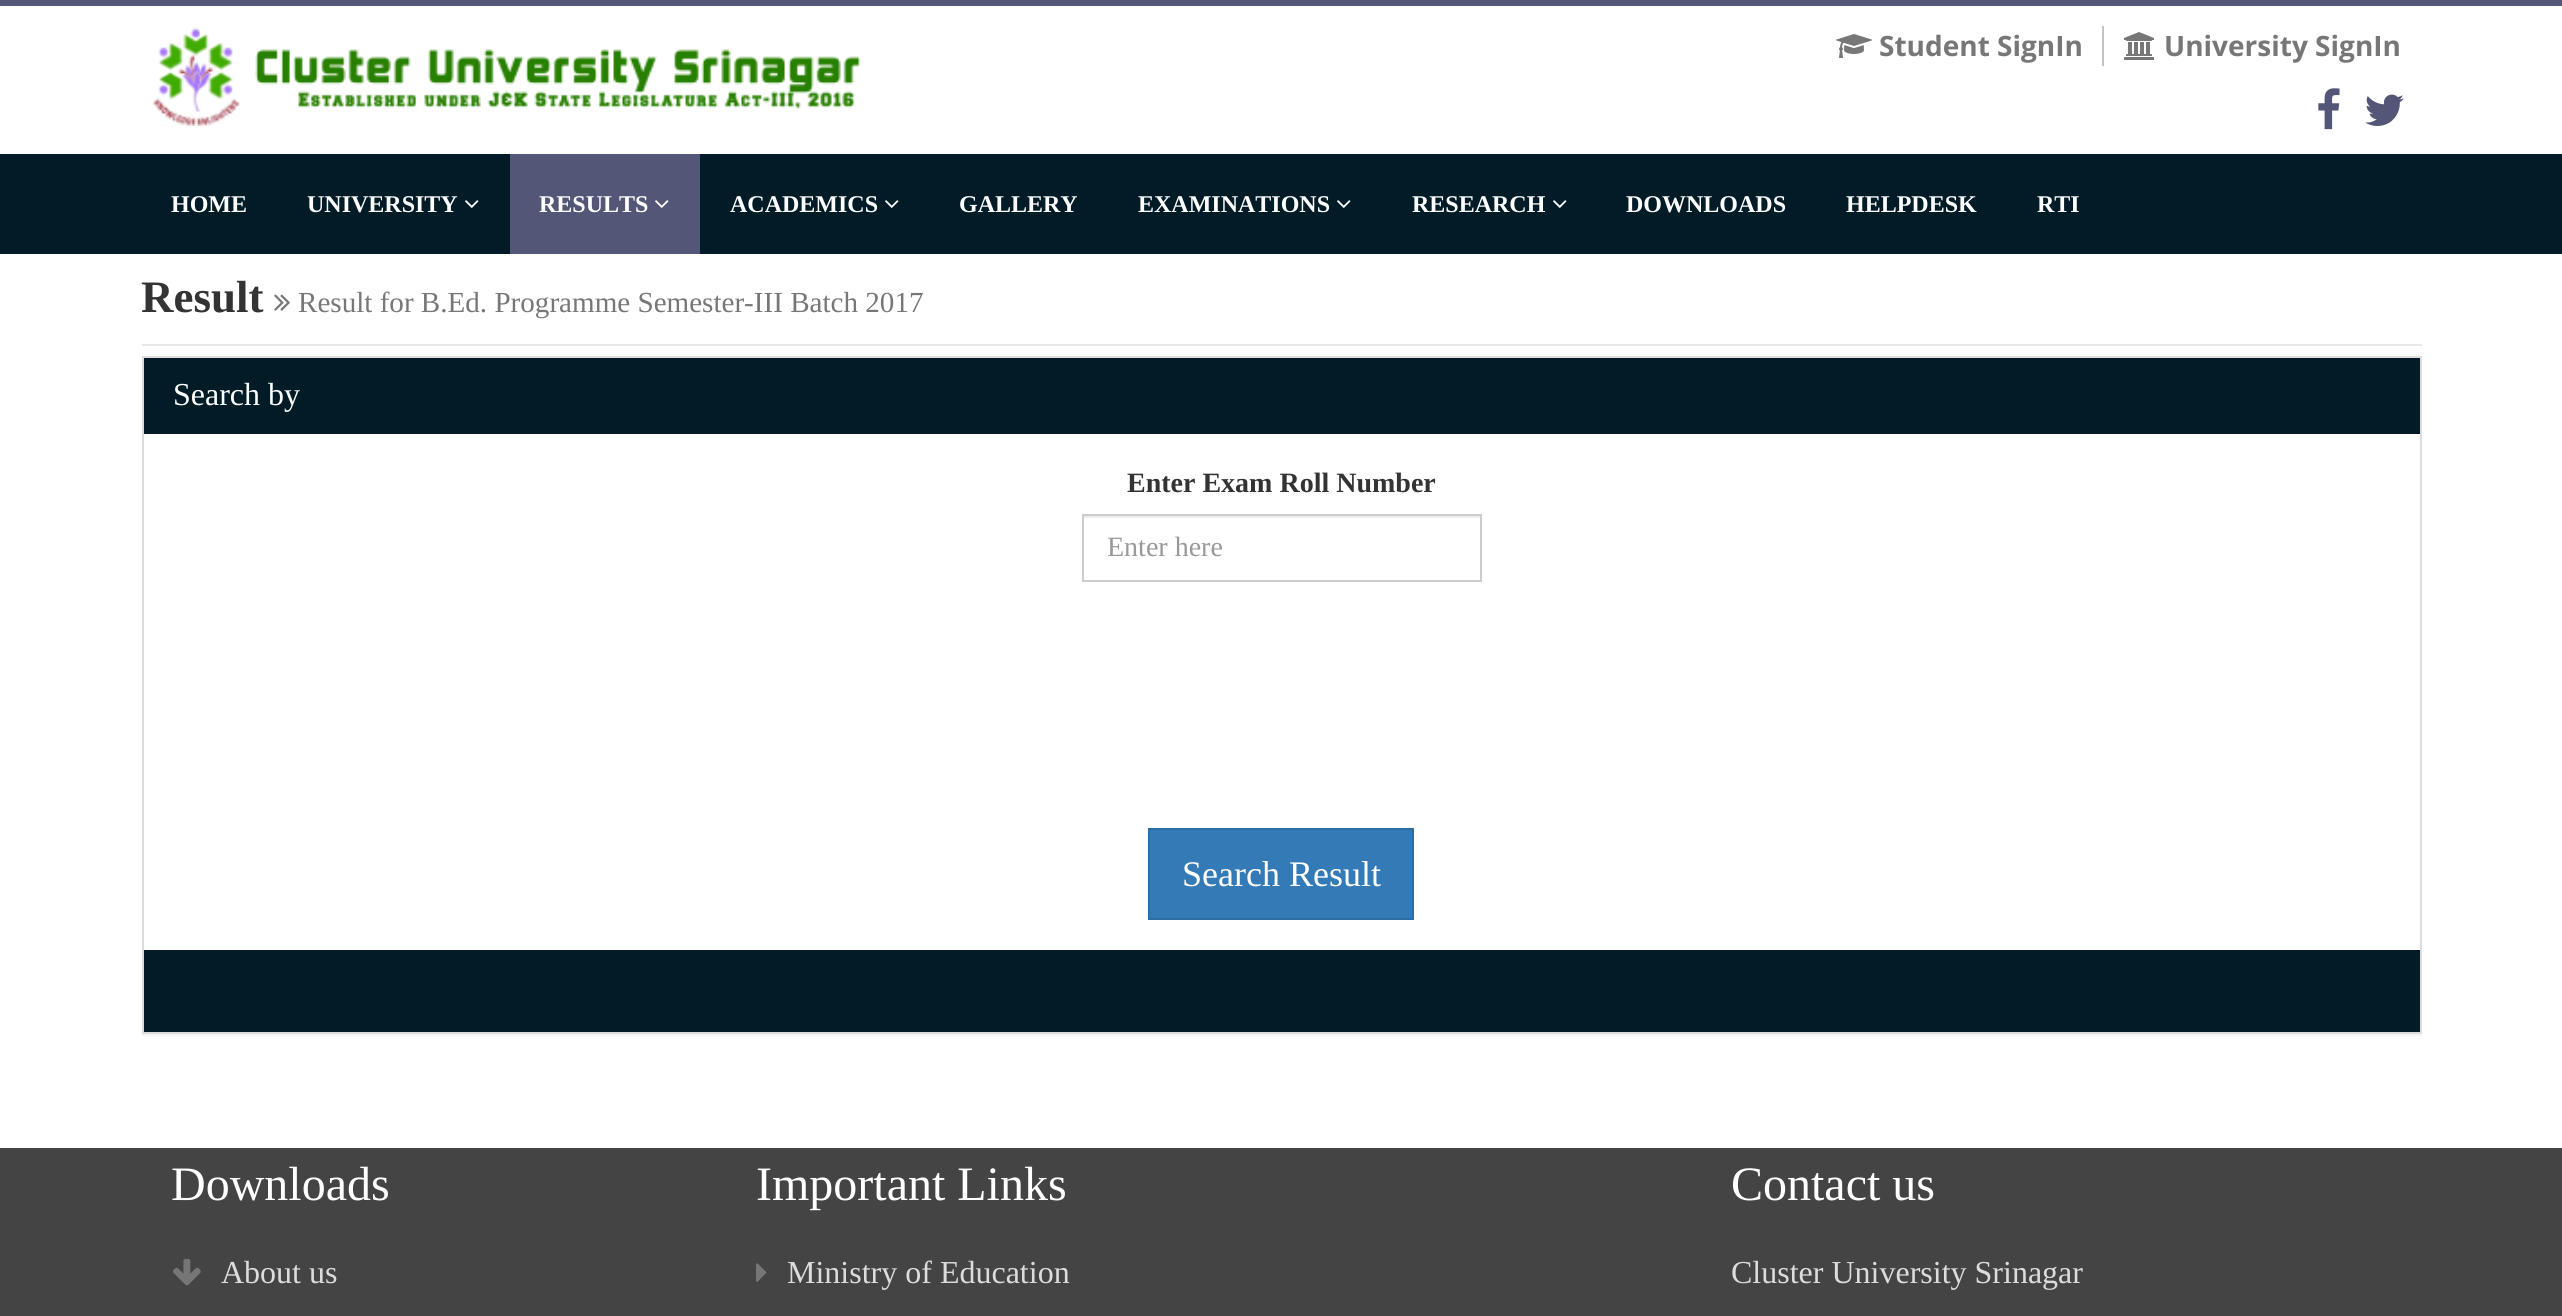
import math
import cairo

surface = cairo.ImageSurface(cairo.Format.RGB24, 2562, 1316)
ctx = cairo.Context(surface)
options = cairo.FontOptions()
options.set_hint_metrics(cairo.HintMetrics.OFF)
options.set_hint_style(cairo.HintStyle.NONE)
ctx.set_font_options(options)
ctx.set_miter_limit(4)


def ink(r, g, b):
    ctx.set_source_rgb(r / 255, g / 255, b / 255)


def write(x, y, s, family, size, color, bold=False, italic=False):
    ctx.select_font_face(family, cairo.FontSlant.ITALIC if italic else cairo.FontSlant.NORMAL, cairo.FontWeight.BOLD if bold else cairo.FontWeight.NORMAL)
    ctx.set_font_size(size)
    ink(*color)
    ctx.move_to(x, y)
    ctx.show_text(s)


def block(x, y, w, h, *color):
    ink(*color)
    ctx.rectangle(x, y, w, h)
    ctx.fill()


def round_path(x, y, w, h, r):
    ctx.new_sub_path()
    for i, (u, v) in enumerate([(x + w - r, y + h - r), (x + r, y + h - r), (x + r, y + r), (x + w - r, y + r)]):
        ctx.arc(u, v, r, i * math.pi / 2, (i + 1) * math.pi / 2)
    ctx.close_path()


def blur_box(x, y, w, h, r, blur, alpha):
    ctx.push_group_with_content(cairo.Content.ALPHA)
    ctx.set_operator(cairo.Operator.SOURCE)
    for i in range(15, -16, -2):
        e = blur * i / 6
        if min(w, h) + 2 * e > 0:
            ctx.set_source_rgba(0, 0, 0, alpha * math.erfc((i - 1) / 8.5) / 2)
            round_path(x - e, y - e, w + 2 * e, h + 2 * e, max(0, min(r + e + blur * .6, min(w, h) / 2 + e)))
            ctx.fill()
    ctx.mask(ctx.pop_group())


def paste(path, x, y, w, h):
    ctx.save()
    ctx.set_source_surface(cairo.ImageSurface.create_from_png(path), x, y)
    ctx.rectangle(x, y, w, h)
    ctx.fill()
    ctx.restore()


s1 = dict(family="Open Sans", size=28, color=(119, 119, 119), bold=True)
s2 = dict(family="Liberation Serif", size=24, color=(255, 255, 255), bold=True)
s3 = dict(family="Liberation Serif", size=45, color=(51, 51, 51), bold=True)
s4 = dict(family="Liberation Serif", size=29.1, color=(119, 119, 119))
s5 = dict(family="Liberation Serif", size=32, color=(255, 255, 255))
s6 = dict(family="Liberation Serif", size=28, color=(51, 51, 51), bold=True)
s7 = dict(family="Liberation Serif", size=28, color=(153, 153, 153))
s8 = dict(family="Liberation Serif", size=36, color=(255, 255, 255))
s9 = dict(family="Liberation Serif", size=48, color=(255, 255, 255))
s10 = dict(family="Liberation Serif", size=32, color=(220, 220, 220))

ink(255, 255, 255)
ctx.paint()
block(0, 0, 2562, 6, 84, 86, 119)
paste("pic1.png", 152, 27, 709, 99)
block(2102, 26, 2, 40, 195, 195, 195)
paste("pic2.png", 1836, 34, 36, 24)
write(1879, 56, "Student SignIn", **s1)
paste("pic3.png", 2124, 32, 30, 28)
write(2164, 56, "University SignIn", **s1)
paste("pic4.png", 2318, 88, 22, 42)
paste("pic5.png", 2365, 94, 39, 32)
block(0, 154, 2562, 100, 1, 28, 39)
write(171, 212, "HOME", **s2)
write(307, 212, "UNIVERSITY", **s2)
paste("pic6.png", 465, 200, 14, 8)
block(510, 154, 190, 100, 84, 86, 119)
write(539, 212, "RESULTS", **s2)
paste("pic7.png", 655, 200, 14, 8)
write(730, 212, "ACADEMICS", **s2)
paste("pic6.png", 885, 200, 14, 8)
write(959, 212, "GALLERY", **s2)
write(1138, 212, "EXAMINATIONS", **s2)
paste("pic6.png", 1337, 200, 14, 8)
write(1412, 212, "RESEARCH", **s2)
paste("pic6.png", 1553, 200, 14, 8)
write(1626, 212, "DOWNLOADS", **s2)
write(1846, 212, "HELPDESK", **s2)
write(2037, 212, "RTI", **s2)
block(142, 344, 2280, 2, 232, 232, 232)
write(141, 312, "Result", **s3)
paste("pic8.png", 274, 294, 16, 17)
write(298, 312, "Result for B.Ed. Programme Semester-III Batch 2017", **s4)
ctx.save()
ctx.rectangle(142, 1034, 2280, 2)
ctx.clip()
ink(0, 0, 0)
blur_box(142, 358, 2280, 678, 0, 1, 0.05)
ctx.restore()
ctx.rectangle(143, 357, 2278, 676)
ink(221, 221, 221)
ctx.stroke()
block(144, 358, 2276, 76, 1, 28, 39)
write(173, 405, "Search by", **s5)
write(1127, 492, "Enter Exam Roll Number", **s6)
block(1084, 516, 396, 2, 236, 236, 236)
ctx.rectangle(1083, 515, 398, 66)
ink(204, 204, 204)
ctx.stroke()
ctx.save()
ctx.rectangle(1108, 532, 348, 32)
ctx.clip()
write(1107, 556, "Enter here", **s7)
ctx.restore()
ink(51, 122, 183)
ctx.rectangle(1149, 829, 264, 90)
ctx.fill_preserve()
ink(46, 109, 164)
ctx.stroke()
write(1182, 886, "Search Result", **s8)
block(144, 950, 2276, 82, 1, 28, 39)
block(0, 1148, 2562, 168, 68, 68, 68)
write(171, 1200, "Downloads", **s9)
paste("pic9.png", 173, 1258, 28, 28)
write(221, 1283, "About us", **s10)
write(756, 1200, "Important Links", **s9)
paste("pic10.png", 756, 1263, 11, 19)
write(787, 1283, "Ministry of Education", **s10)
write(1731, 1200, "Contact us", **s9)
write(1731, 1283, "Cluster University Srinagar", **s10)
surface.write_to_png("screenshot.png")
